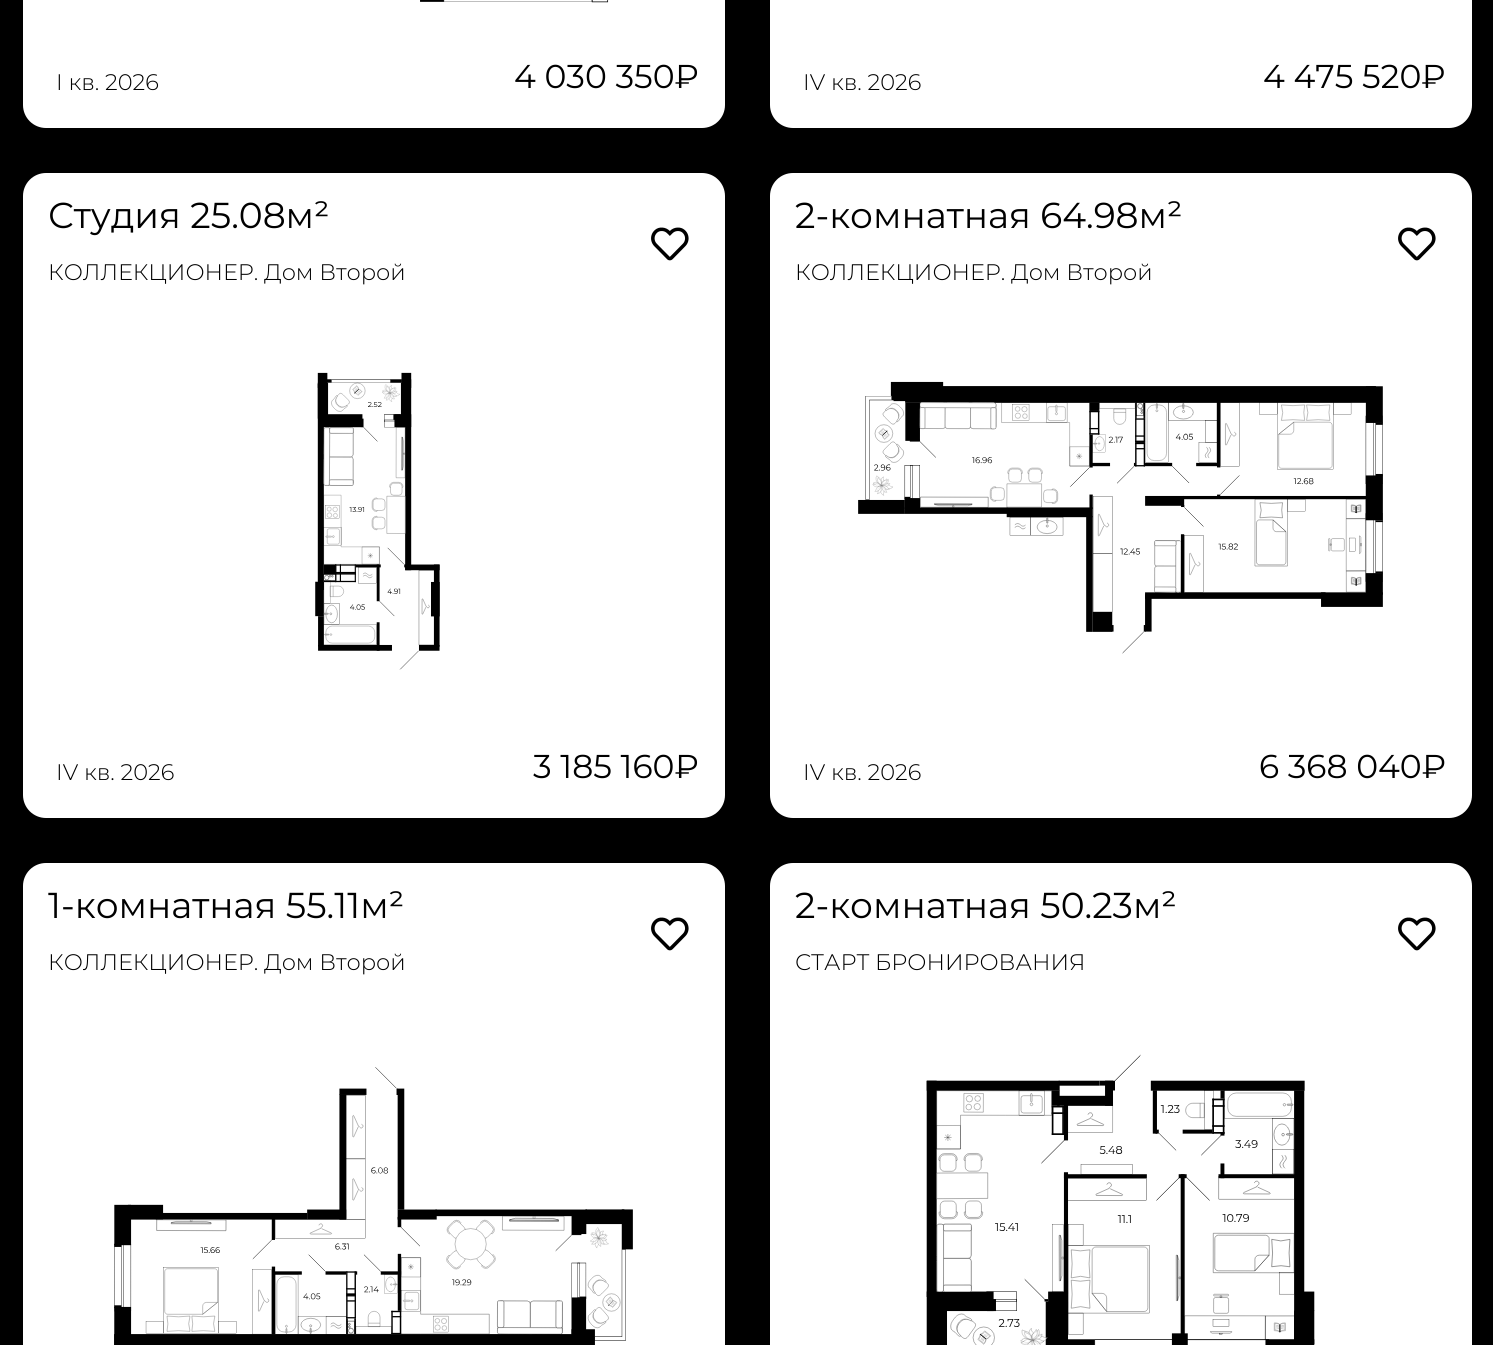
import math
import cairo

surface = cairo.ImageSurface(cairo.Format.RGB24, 1493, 1345)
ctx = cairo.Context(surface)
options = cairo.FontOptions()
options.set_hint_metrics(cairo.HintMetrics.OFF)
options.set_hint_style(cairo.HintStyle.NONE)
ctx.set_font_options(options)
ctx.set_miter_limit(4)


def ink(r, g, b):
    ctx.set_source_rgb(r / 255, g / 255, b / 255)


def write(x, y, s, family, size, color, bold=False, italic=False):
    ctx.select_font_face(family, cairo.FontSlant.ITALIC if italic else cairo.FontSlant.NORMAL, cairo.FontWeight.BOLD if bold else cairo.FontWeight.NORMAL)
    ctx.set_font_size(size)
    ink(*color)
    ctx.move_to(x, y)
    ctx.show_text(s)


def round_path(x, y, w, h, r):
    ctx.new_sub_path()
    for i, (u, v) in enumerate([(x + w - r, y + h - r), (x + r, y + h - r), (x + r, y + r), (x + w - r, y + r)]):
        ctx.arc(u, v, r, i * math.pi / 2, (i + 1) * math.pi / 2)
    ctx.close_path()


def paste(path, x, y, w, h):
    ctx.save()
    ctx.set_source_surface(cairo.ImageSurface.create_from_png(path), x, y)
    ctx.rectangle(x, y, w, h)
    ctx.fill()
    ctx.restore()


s1 = dict(family="Montserrat Light", size=22.5, color=(0, 0, 0))
s2 = dict(family="Montserrat", size=33, color=(0, 0, 0))
s3 = dict(family="Montserrat", size=36, color=(0, 0, 0))

ink(0, 0, 0)
ctx.paint()
ink(255, 255, 255)
round_path(23, -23, 702, 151, 23)
ctx.fill()
paste("pic1.png", 420, 0, 189, 3)
write(56, 90, "I кв. 2026", **s1)
write(514, 88, "4 030 350₽", **s2)
ink(255, 255, 255)
round_path(770, -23, 702, 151, 23)
ctx.fill()
write(803, 90, "IV кв. 2026", **s1)
write(1263, 88, "4 475 520₽", **s2)
ink(255, 255, 255)
round_path(23, 173, 702, 645, 23)
ctx.fill()
write(48, 228, "Студия 25.08м²", **s3)
write(48, 280, "КОЛЛЕКЦИОНЕР. Дом Второй", **s1)
paste("pic2.png", 651, 227, 38, 34)
paste("pic3.png", 315, 372, 125, 298)
write(56, 780, "IV кв. 2026", **s1)
write(533, 778, "3 185 160₽", **s2)
ink(255, 255, 255)
round_path(770, 173, 702, 645, 23)
ctx.fill()
write(795, 228, "2-комнатная 64.98м²", **s3)
write(795, 280, "КОЛЛЕКЦИОНЕР. Дом Второй", **s1)
paste("pic2.png", 1398, 227, 38, 34)
paste("pic4.png", 858, 381, 525, 273)
write(803, 780, "IV кв. 2026", **s1)
write(1259, 778, "6 368 040₽", **s2)
ink(255, 255, 255)
round_path(23, 863, 702, 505, 23)
ctx.fill()
write(48, 918, "1-комнатная 55.11м²", **s3)
write(48, 970, "КОЛЛЕКЦИОНЕР. Дом Второй", **s1)
paste("pic2.png", 651, 917, 38, 34)
paste("pic5.png", 114, 1067, 519, 278)
ink(255, 255, 255)
round_path(770, 863, 702, 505, 23)
ctx.fill()
write(795, 918, "2-комнатная 50.23м²", **s3)
write(795, 970, "СТАРТ БРОНИРОВАНИЯ", **s1)
paste("pic2.png", 1398, 917, 38, 34)
paste("pic6.png", 926, 1054, 389, 291)
surface.write_to_png("screenshot.png")
